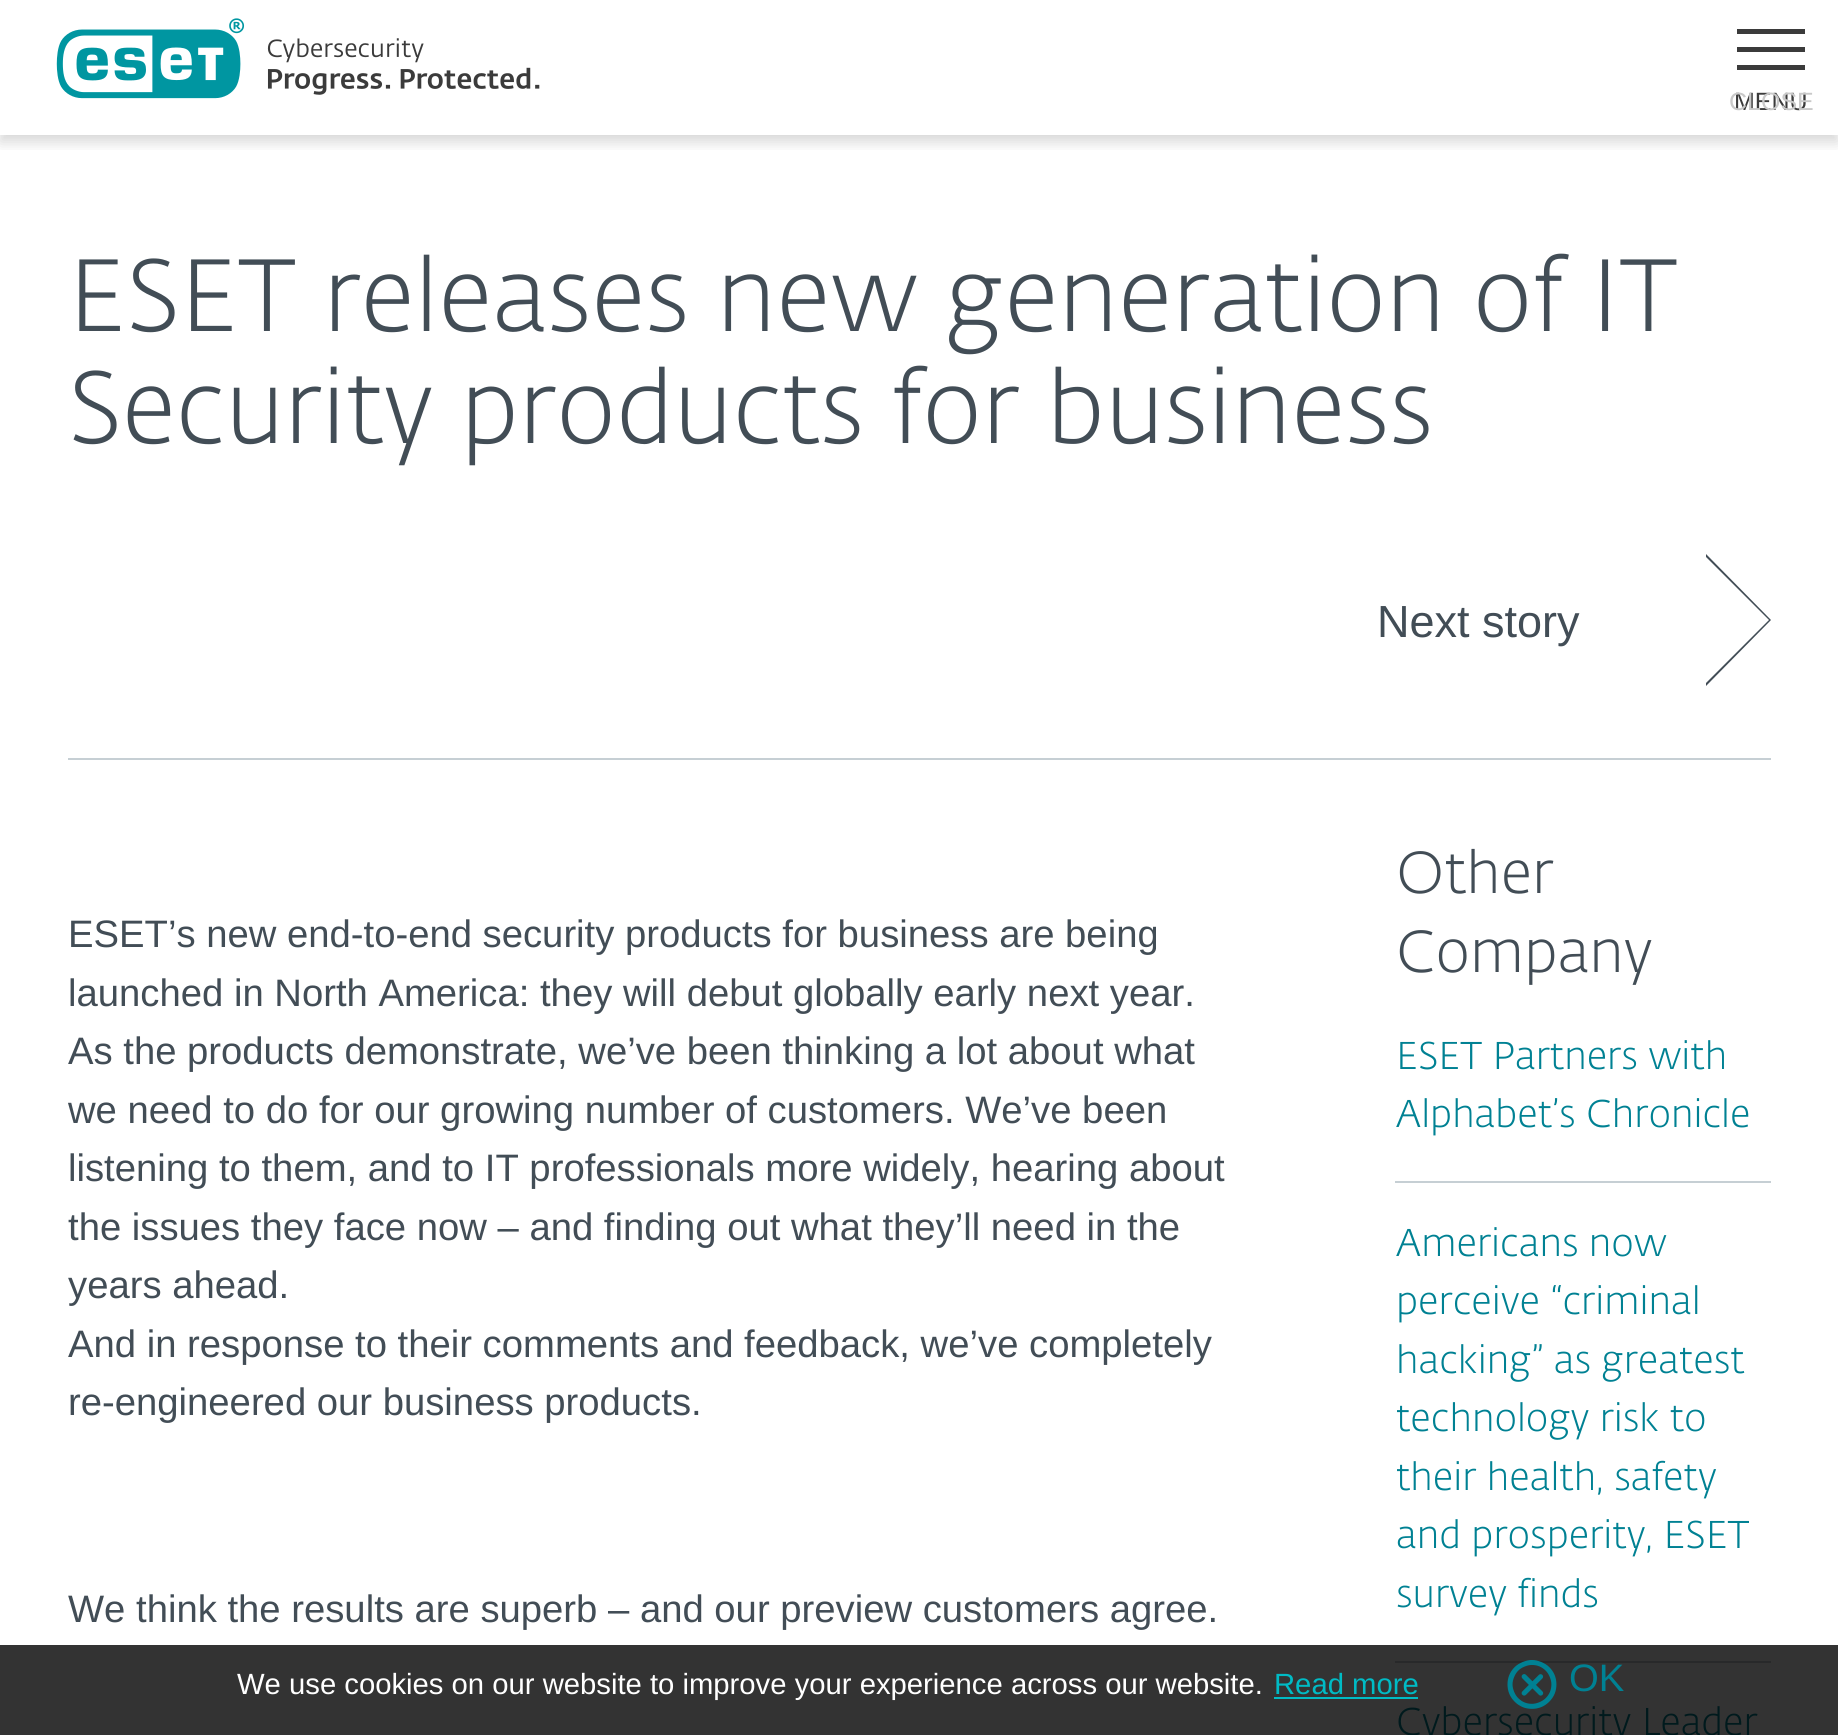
import math
import cairo

surface = cairo.ImageSurface(cairo.Format.RGB24, 1838, 1735)
ctx = cairo.Context(surface)
options = cairo.FontOptions()
options.set_hint_metrics(cairo.HintMetrics.OFF)
options.set_hint_style(cairo.HintStyle.NONE)
ctx.set_font_options(options)
ctx.set_miter_limit(4)


def ink(r, g, b):
    ctx.set_source_rgb(r / 255, g / 255, b / 255)


def write(x, y, s, family, size, color, bold=False, italic=False):
    ctx.select_font_face(family, cairo.FontSlant.ITALIC if italic else cairo.FontSlant.NORMAL, cairo.FontWeight.BOLD if bold else cairo.FontWeight.NORMAL)
    ctx.set_font_size(size)
    ink(*color)
    ctx.move_to(x, y)
    ctx.show_text(s)


def block(x, y, w, h, *color):
    ink(*color)
    ctx.rectangle(x, y, w, h)
    ctx.fill()


def round_path(x, y, w, h, r):
    ctx.new_sub_path()
    for i, (u, v) in enumerate([(x + w - r, y + h - r), (x + r, y + h - r), (x + r, y + r), (x + w - r, y + r)]):
        ctx.arc(u, v, r, i * math.pi / 2, (i + 1) * math.pi / 2)
    ctx.close_path()


def blur_box(x, y, w, h, r, blur, alpha):
    ctx.push_group_with_content(cairo.Content.ALPHA)
    ctx.set_operator(cairo.Operator.SOURCE)
    for i in range(15, -16, -2):
        e = blur * i / 6
        if min(w, h) + 2 * e > 0:
            ctx.set_source_rgba(0, 0, 0, alpha * math.erfc((i - 1) / 8.5) / 2)
            round_path(x - e, y - e, w + 2 * e, h + 2 * e, max(0, min(r + e + blur * .6, min(w, h) / 2 + e)))
            ctx.fill()
    ctx.mask(ctx.pop_group())


def paste(path, x, y, w, h):
    ctx.save()
    ctx.set_source_surface(cairo.ImageSurface.create_from_png(path), x, y)
    ctx.rectangle(x, y, w, h)
    ctx.fill()
    ctx.restore()


s1 = dict(family="Liberation Sans", size=25, color=(59, 59, 59))
s2 = dict(family="Liberation Sans", size=25, color=(201, 201, 201))
s3 = dict(family="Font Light", size=101.25, color=(66, 77, 86))
s4 = dict(family="Liberation Sans", size=45, color=(66, 77, 86))
s5 = dict(family="Liberation Sans", size=38.25, color=(66, 77, 86))
s6 = dict(family="Font Light", size=58.5, color=(66, 77, 86))
s7 = dict(family="Font Light", size=38.25, color=(0, 129, 147))
s8 = dict(family="Font Light", size=38.25, color=(0, 26, 29))
s9 = dict(family="Liberation Sans", size=29.25, color=(255, 255, 255))
s10 = dict(family="Liberation Sans", size=29.25, color=(0, 187, 197))
s11 = dict(family="Liberation Sans", size=38.25, color=(0, 129, 147))

ink(255, 255, 255)
ctx.paint()
block(0, 1645, 1838, 90, 51, 51, 51)
ctx.save()
ctx.rectangle(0, 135, 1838, 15)
ctx.clip()
ink(0, 0, 0)
blur_box(0, 7, 1838, 135, 0, 7, 0.16)
ctx.restore()
paste("pic1.png", 56, 18, 484, 81)
block(1737, 29, 68, 5, 59, 59, 59)
block(1737, 47, 68, 5, 59, 59, 59)
block(1737, 65, 68, 5, 59, 59, 59)
write(1734, 110, "MENU", **s1)
write(1729, 110, "CLOSE", **s2)
block(68, 758, 1703, 2, 198, 207, 212)
write(68, 331, "ESET releases new generation of IT", **s3)
write(68, 443, "Security products for business", **s3)
write(1377, 637, "Next story", **s4)
ctx.new_path()
ctx.move_to(1771, 620)
ctx.line_to(1706, 686)
ctx.line_to(1706, 683)
ctx.line_to(1769, 620)
ctx.line_to(1706, 557)
ctx.line_to(1706, 554)
ctx.close_path()
ctx.fill()
write(68, 947, "ESET’s new end-to-end security products for business are being", **s5)
write(68, 1006, "launched in North America: they will debut globally early next year.", **s5)
write(68, 1064, "As the products demonstrate, we’ve been thinking a lot about what", **s5)
write(68, 1123, "we need to do for our growing number of customers. We’ve been", **s5)
write(68, 1181, "listening to them, and to IT professionals more widely, hearing about", **s5)
write(68, 1240, "the issues they face now – and finding out what they’ll need in the", **s5)
write(68, 1298, "years ahead.", **s5)
write(68, 1357, "And in response to their comments and feedback, we’ve completely", **s5)
write(68, 1415, "re-engineered our business products.", **s5)
write(68, 1622, "We think the results are superb – and our preview customers agree.", **s5)
write(1396, 893, "Other", **s6)
write(1396, 972, "Company", **s6)
write(1396, 1069, "ESET Partners with", **s7)
write(1396, 1127, "Alphabet’s Chronicle", **s7)
block(1395, 1181, 376, 2, 198, 207, 212)
write(1396, 1256, "Americans now", **s7)
write(1396, 1314, "perceive “criminal", **s7)
write(1396, 1373, "hacking” as greatest", **s7)
write(1396, 1431, "technology risk to", **s7)
write(1396, 1490, "their health, safety", **s7)
write(1396, 1548, "and prosperity, ESET", **s7)
write(1396, 1607, "survey finds", **s7)
block(1395, 1661, 376, 2, 40, 41, 42)
write(1396, 1735, "Cybersecurity Leader", **s8)
write(237, 1694, "We use cookies on our website to improve your experience across our website.", **s9)
write(1274, 1694, "Read more", **s10)
block(1274, 1697, 144, 2, 0, 187, 197)
paste("pic2.png", 1507, 1660, 50, 49)
write(1569, 1691, "OK", **s11)
surface.write_to_png("screenshot.png")
